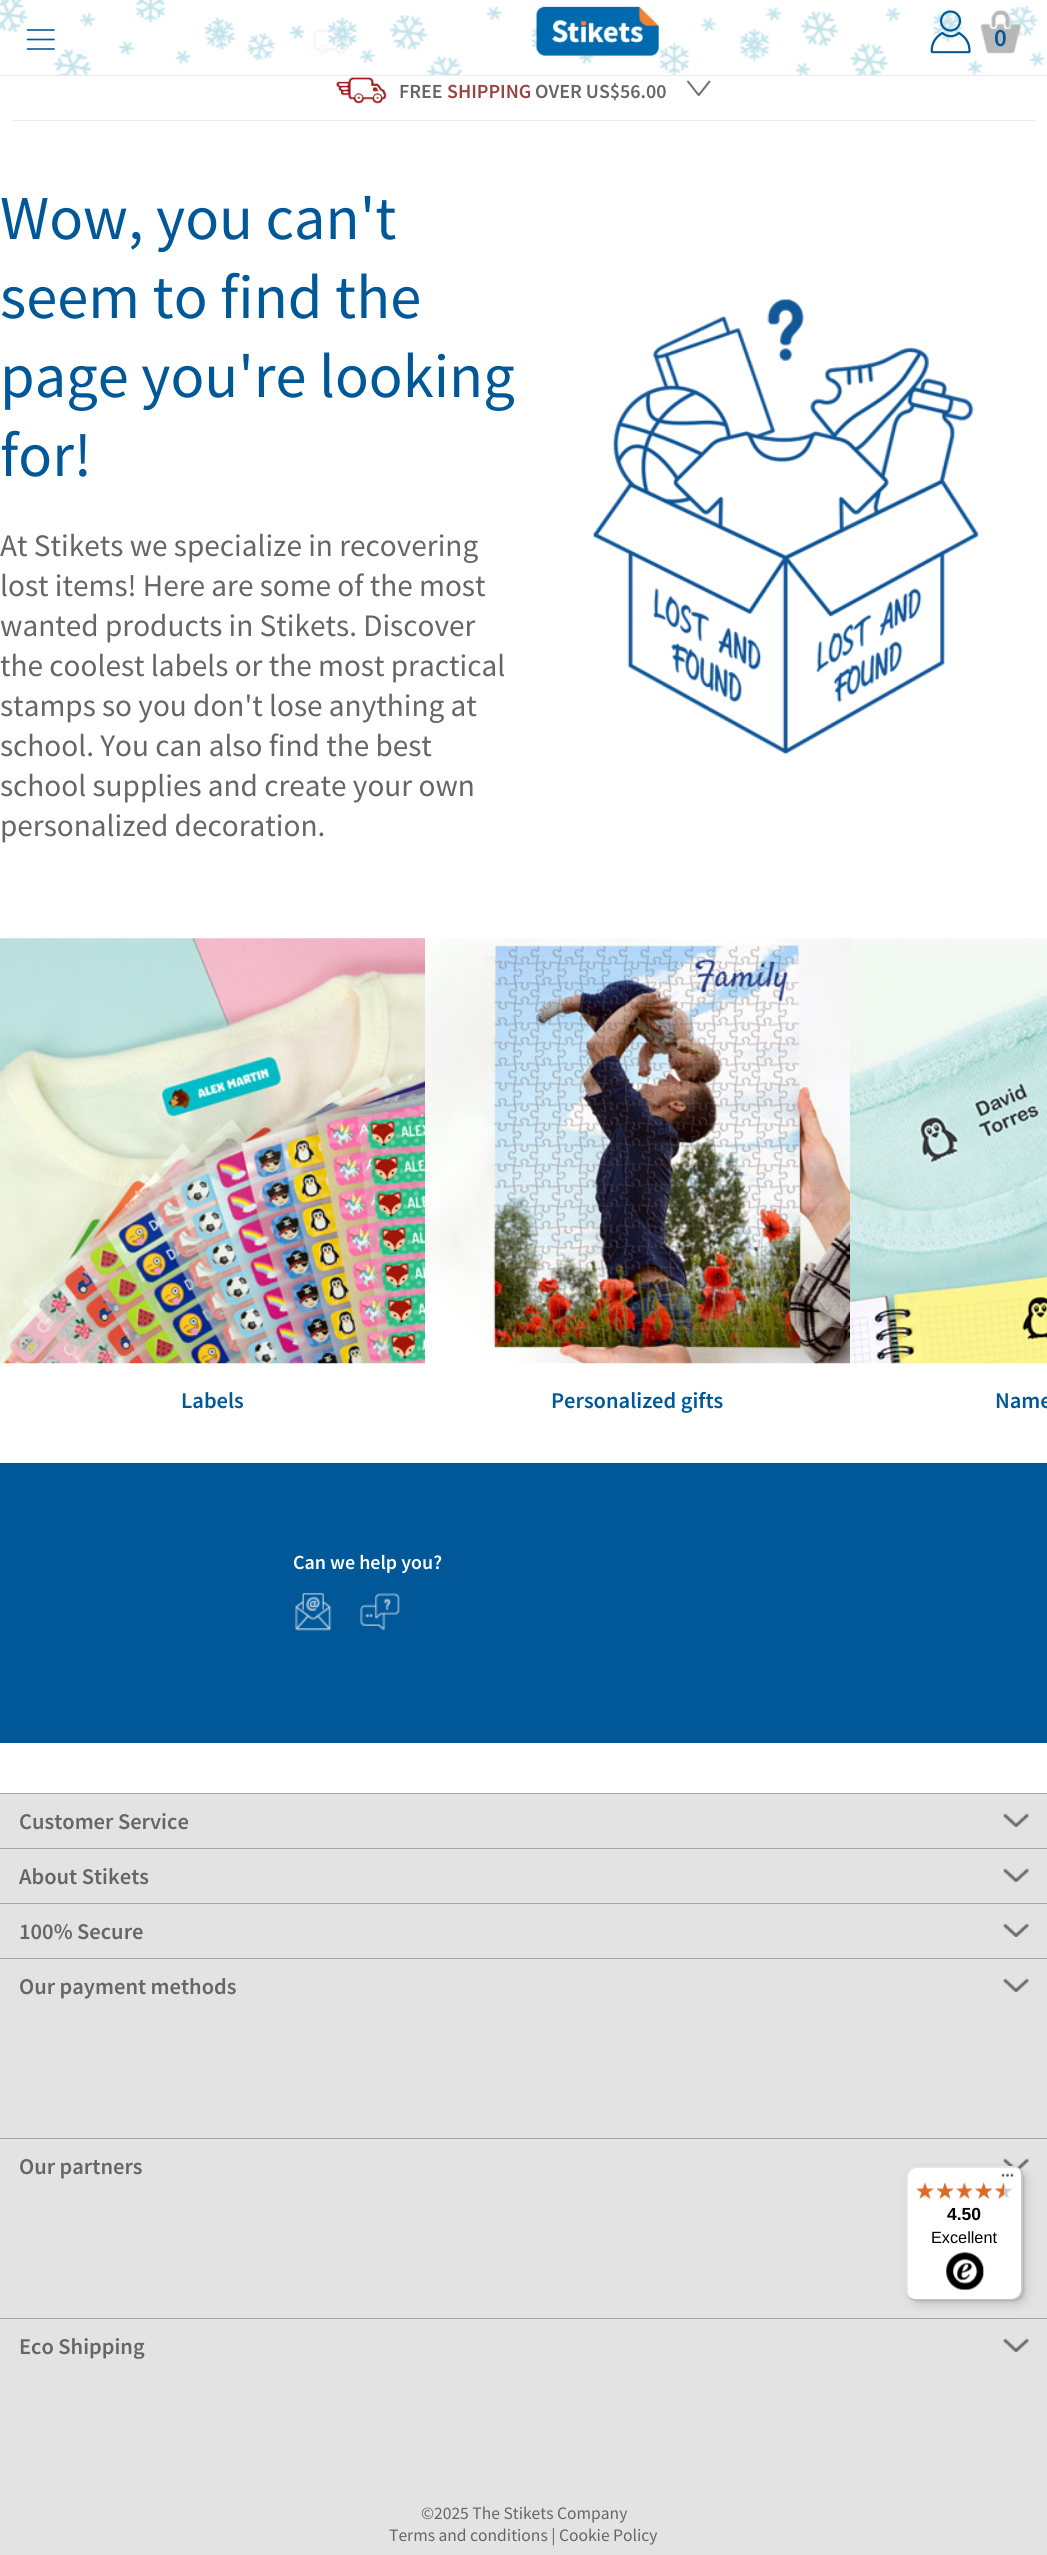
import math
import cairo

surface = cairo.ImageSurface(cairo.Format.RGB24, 1047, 2555)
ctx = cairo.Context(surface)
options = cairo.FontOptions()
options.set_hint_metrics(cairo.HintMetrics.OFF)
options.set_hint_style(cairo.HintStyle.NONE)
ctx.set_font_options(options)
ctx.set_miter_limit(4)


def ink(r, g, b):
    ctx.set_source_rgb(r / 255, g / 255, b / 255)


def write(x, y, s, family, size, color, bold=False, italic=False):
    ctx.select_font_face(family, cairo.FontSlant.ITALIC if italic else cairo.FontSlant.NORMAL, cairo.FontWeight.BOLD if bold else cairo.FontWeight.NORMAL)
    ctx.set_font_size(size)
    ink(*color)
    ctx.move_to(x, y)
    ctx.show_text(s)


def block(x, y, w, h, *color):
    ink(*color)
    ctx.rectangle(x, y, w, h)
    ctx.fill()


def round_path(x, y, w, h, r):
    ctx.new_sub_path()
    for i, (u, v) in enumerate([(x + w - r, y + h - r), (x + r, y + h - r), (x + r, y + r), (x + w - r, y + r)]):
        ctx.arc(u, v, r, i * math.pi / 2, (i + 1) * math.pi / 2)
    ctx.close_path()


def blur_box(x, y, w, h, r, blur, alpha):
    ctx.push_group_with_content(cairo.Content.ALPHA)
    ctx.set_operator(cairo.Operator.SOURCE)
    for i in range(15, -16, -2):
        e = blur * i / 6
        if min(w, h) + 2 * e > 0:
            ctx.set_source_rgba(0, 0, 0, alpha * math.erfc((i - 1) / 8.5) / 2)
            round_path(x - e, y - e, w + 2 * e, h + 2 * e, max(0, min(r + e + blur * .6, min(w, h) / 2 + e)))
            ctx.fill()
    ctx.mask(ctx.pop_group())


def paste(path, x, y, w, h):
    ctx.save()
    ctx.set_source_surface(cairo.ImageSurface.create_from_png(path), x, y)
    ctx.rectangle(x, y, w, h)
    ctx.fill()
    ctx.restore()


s1 = dict(family="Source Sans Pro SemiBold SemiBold", size=25, color=(0, 88, 152))
s2 = dict(family="Source Sans Pro SemiBold SemiBold", size=20, color=(102, 102, 102))
s3 = dict(family="Source Sans Pro SemiBold SemiBold", size=20, color=(153, 68, 68))
s4 = dict(family="Source Sans Pro", size=62.5, color=(0, 88, 152))
s5 = dict(family="Source Sans Pro", size=31.25, color=(102, 102, 102))
s6 = dict(family="Source Sans Pro SemiBold SemiBold", size=22.5, color=(0, 88, 152))
s7 = dict(family="Source Sans Pro SemiBold SemiBold", size=20, color=(255, 255, 255))
s8 = dict(family="Source Sans Pro SemiBold SemiBold", size=22.5, color=(102, 102, 102))
s9 = dict(family="Source Sans Pro", size=17.5, color=(102, 102, 102))
s10 = dict(family="Liberation Sans", size=17.5, color=(0, 0, 0), bold=True)
s11 = dict(family="Liberation Sans", size=16.25, color=(0, 0, 0))

ink(255, 255, 255)
ctx.paint()
block(0, 75, 1047, 1, 235, 233, 235)
paste("pic5.png", 313, 29, 36, 25)
paste("pic1.png", 0, 0, 1046, 75)
ctx.new_path()
ctx.move_to(27.5, 49)
ctx.line_to(54, 49)
ctx.move_to(27.5, 39.5)
ctx.line_to(54, 39.5)
ctx.move_to(27.5, 30)
ctx.line_to(54, 30)
ink(0, 88, 152)
ctx.set_line_width(1.6)
ctx.set_line_cap(cairo.LineCap.ROUND)
ctx.stroke()
block(73, 25, 12, 29, 255, 255, 255)
paste("pic2.png", 536, 6, 123, 50)
paste("pic3.png", 930, 10, 41, 44)
paste("pic4.png", 980, 10, 41, 44)
write(994, 46, "0", **s1)
block(13, 120, 1022, 1, 235, 233, 235)
paste("pic6.png", 336, 77, 51, 27)
write(399, 98, "FREE", **s2)
write(447, 98, "SHIPPING", **s3)
write(535, 98, "OVER US$56.00", **s2)
paste("pic7.png", 687, 80, 24, 16)
write(0, 239, "Wow, you can't", **s4)
write(0, 318, "seem to find the", **s4)
write(0, 397, "page you're looking", **s4)
write(0, 476, "for!", **s4)
write(0, 556, "At Stikets we specialize in recovering", **s5)
write(0, 596, "lost items! Here are some of the most", **s5)
write(0, 636, "wanted products in Stikets. Discover", **s5)
write(0, 676, "the coolest labels or the most practical", **s5)
write(0, 716, "stamps so you don't lose anything at", **s5)
write(0, 756, "school. You can also find the best", **s5)
write(0, 796, "school supplies and create your own", **s5)
write(0, 836, "personalized decoration.", **s5)
paste("pic8.png", 592, 299, 387, 455)
paste("pic9.png", 0, 938, 425, 426)
write(181, 1408, "Labels", **s6)
paste("pic10.png", 425, 938, 425, 426)
write(551, 1408, "Personalized gifts", **s6)
paste("pic11.png", 850, 938, 197, 426)
write(995, 1408, "Name", **s6)
block(0, 1463, 1047, 280, 0, 88, 152)
write(293, 1569, "Can we help you?", **s7)
paste("pic12.png", 295, 1593, 37, 38)
paste("pic13.png", 360, 1593, 40, 38)
block(0, 1794, 1047, 761, 227, 227, 227)
block(0, 1793, 1047, 1, 165, 165, 165)
write(19, 1829, "Customer Service", **s8)
paste("pic14.png", 1003, 1813, 26, 14)
block(0, 1848, 1047, 1, 165, 165, 165)
write(19, 1884, "About Stikets", **s8)
paste("pic14.png", 1003, 1868, 26, 14)
block(0, 1903, 1047, 1, 165, 165, 165)
write(19, 1939, "100% Secure", **s8)
paste("pic14.png", 1003, 1923, 26, 14)
block(0, 1958, 1047, 1, 165, 165, 165)
write(19, 1994, "Our payment methods", **s8)
paste("pic14.png", 1003, 1978, 26, 14)
block(0, 2138, 1047, 1, 165, 165, 165)
write(19, 2174, "Our partners", **s8)
paste("pic15.png", 1003, 2158, 26, 12)
block(0, 2318, 1047, 1, 165, 165, 165)
write(19, 2354, "Eco Shipping", **s8)
paste("pic14.png", 1003, 2338, 26, 14)
write(421, 2519, "©2025 The Stikets Company", **s9)
write(389, 2541, "Terms and conditions | Cookie Policy", **s9)
ink(0, 0, 0)
blur_box(910, 2170, 116, 134, 10, 5, 0.15)
blur_box(908, 2168, 116, 133, 10, 1, 0.15)
ink(255, 255, 255)
round_path(906, 2166, 117, 134, 10)
ctx.fill()
ctx.set_source_rgba(0, 0, 0, 0.1)
ctx.new_path()
ctx.move_to(918, 2168)
ctx.line_to(1014, 2168)
ctx.curve_to(1017, 2168, 1021, 2170, 1022, 2173)
ctx.curve_to(1021, 2169, 1017, 2166, 1013, 2166)
ctx.line_to(916, 2166)
ctx.curve_to(910, 2166, 906, 2170, 906, 2176)
ctx.line_to(906, 2290)
ctx.curve_to(906, 2294, 908, 2297, 912, 2299)
ctx.curve_to(909, 2297, 908, 2294, 908, 2291)
ctx.line_to(908, 2178)
ctx.curve_to(908, 2172, 912, 2168, 918, 2168)
ctx.close_path()
ctx.fill()
ctx.set_source_rgba(0, 0, 0, 0.2)
ctx.new_path()
ctx.move_to(908, 2297)
ctx.curve_to(910, 2299, 913, 2300, 916, 2300)
ctx.line_to(1013, 2300)
ctx.curve_to(1019, 2300, 1023, 2296, 1023, 2290)
ctx.line_to(1023, 2176)
ctx.curve_to(1023, 2172, 1021, 2169, 1017, 2167)
ctx.curve_to(1020, 2169, 1021, 2172, 1021, 2175)
ctx.line_to(1021, 2289)
ctx.curve_to(1021, 2294, 1017, 2299, 1011, 2299)
ctx.line_to(915, 2299)
ctx.curve_to(912, 2299, 910, 2298, 908, 2297)
ctx.close_path()
ctx.fill()
ctx.set_source_rgba(0.196, 0.196, 0.196, 0.2)
ctx.new_path()
ctx.move_to(1022, 2176)
ctx.curve_to(1022, 2170, 1017, 2166, 1012, 2166)
ctx.line_to(1013, 2166)
ctx.curve_to(1019, 2166, 1023, 2170, 1023, 2176)
ctx.line_to(1023, 2290)
ctx.curve_to(1023, 2296, 1019, 2300, 1013, 2300)
ctx.line_to(916, 2300)
ctx.curve_to(910, 2300, 906, 2296, 906, 2290)
ctx.line_to(906, 2289)
ctx.curve_to(906, 2295, 910, 2299, 916, 2299)
ctx.line_to(1012, 2299)
ctx.curve_to(1017, 2299, 1022, 2295, 1022, 2289)
ctx.close_path()
ctx.fill()
ctx.set_source_rgba(1, 1, 1, 0.3)
ctx.new_path()
ctx.move_to(1022, 2176)
ctx.curve_to(1022, 2170, 1017, 2166, 1012, 2166)
ctx.line_to(1013, 2166)
ctx.curve_to(1019, 2166, 1023, 2170, 1023, 2176)
ctx.line_to(1023, 2290)
ctx.curve_to(1023, 2296, 1019, 2300, 1013, 2300)
ctx.line_to(916, 2300)
ctx.curve_to(910, 2300, 906, 2296, 906, 2290)
ctx.line_to(906, 2289)
ctx.curve_to(906, 2295, 910, 2299, 916, 2299)
ctx.line_to(1012, 2299)
ctx.curve_to(1017, 2299, 1022, 2295, 1022, 2289)
ctx.close_path()
ctx.fill()
paste("pic16.png", 1001, 2173, 13, 4)
paste("pic17.png", 916, 2182, 18, 17)
paste("pic18.png", 937, 2183, 16, 16)
paste("pic19.png", 956, 2182, 17, 17)
paste("pic20.png", 975, 2182, 17, 17)
paste("pic21.png", 995, 2182, 18, 17)
paste("pic22.png", 916, 2182, 18, 17)
paste("pic23.png", 936, 2182, 18, 17)
paste("pic24.png", 956, 2182, 17, 17)
paste("pic25.png", 975, 2182, 17, 17)
paste("pic26.png", 995, 2182, 9, 17)
write(947, 2220, "4.50", **s10)
write(931, 2243, "Excellent", **s11)
paste("pic27.png", 946, 2252, 39, 39)
surface.write_to_png("screenshot.png")
